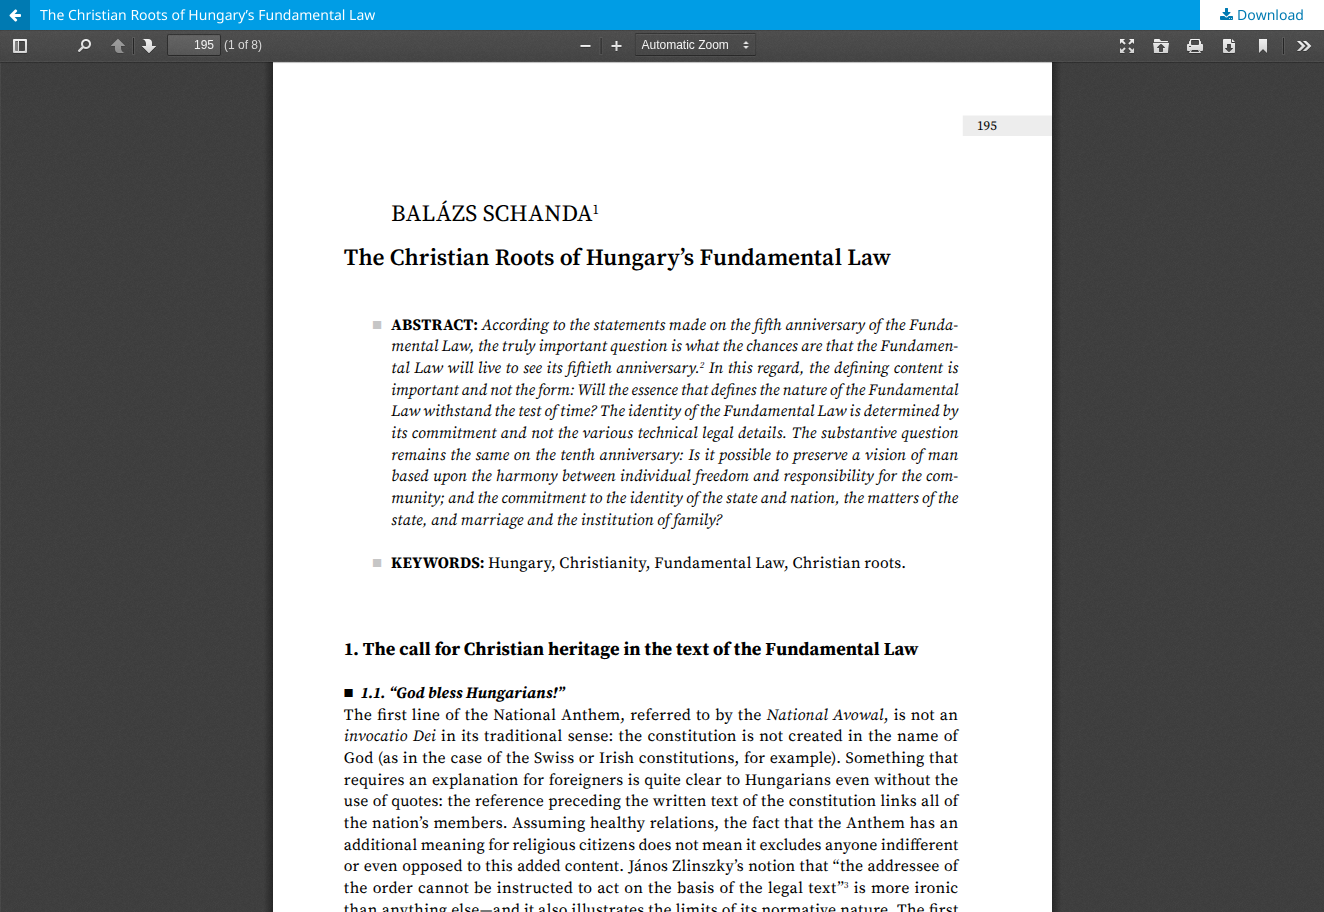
import math
import cairo

surface = cairo.ImageSurface(cairo.Format.RGB24, 1324, 912)
ctx = cairo.Context(surface)
options = cairo.FontOptions()
options.set_hint_metrics(cairo.HintMetrics.OFF)
options.set_hint_style(cairo.HintStyle.NONE)
ctx.set_font_options(options)
ctx.set_miter_limit(4)


def ink(r, g, b):
    ctx.set_source_rgb(r / 255, g / 255, b / 255)


def write(x, y, s, family, size, color, bold=False, italic=False):
    ctx.select_font_face(family, cairo.FontSlant.ITALIC if italic else cairo.FontSlant.NORMAL, cairo.FontWeight.BOLD if bold else cairo.FontWeight.NORMAL)
    ctx.set_font_size(size)
    ink(*color)
    ctx.move_to(x, y)
    ctx.show_text(s)


def block(x, y, w, h, *color):
    ink(*color)
    ctx.rectangle(x, y, w, h)
    ctx.fill()


def paste(path, x, y, w, h):
    ctx.save()
    ctx.set_source_surface(cairo.ImageSurface.create_from_png(path), x, y)
    ctx.rectangle(x, y, w, h)
    ctx.fill()
    ctx.restore()


s1 = dict(family="Noto Sans", size=14, color=(255, 255, 255))
s2 = dict(family="Noto Sans", size=14, color=(0, 122, 178))

ink(255, 255, 255)
ctx.paint()
block(30, 0, 1170, 30, 0, 157, 229)
block(0, 0, 30, 30, 0, 122, 178)
paste("pic1.png", 9, 9, 12, 13)
write(40, 20, "The Christian Roots of Hungary’s Fundamental Law", **s1)
paste("pic2.png", 1220, 8, 13, 12)
write(1237, 20, "Download", **s2)
paste("pic3.png", 0, 30, 1324, 882)
surface.write_to_png("screenshot.png")
